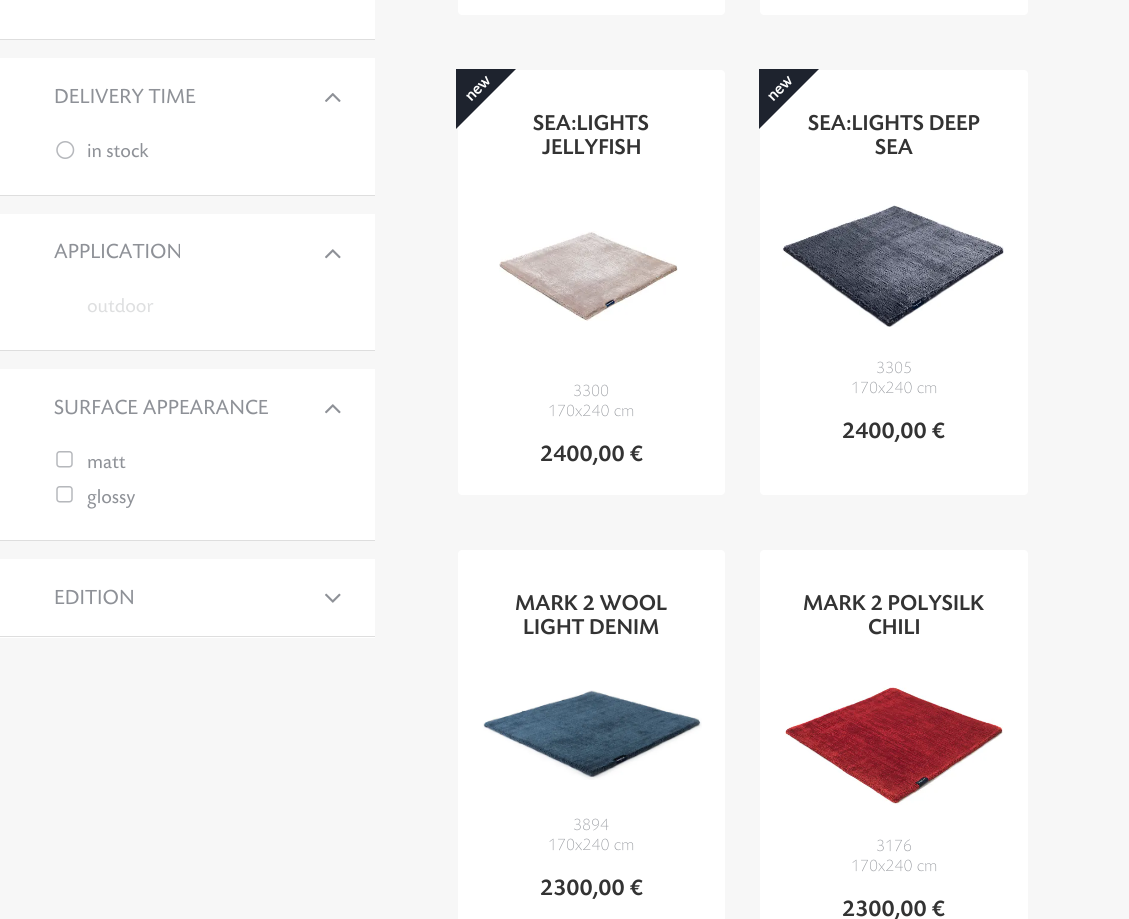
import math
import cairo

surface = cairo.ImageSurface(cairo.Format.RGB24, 1129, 919)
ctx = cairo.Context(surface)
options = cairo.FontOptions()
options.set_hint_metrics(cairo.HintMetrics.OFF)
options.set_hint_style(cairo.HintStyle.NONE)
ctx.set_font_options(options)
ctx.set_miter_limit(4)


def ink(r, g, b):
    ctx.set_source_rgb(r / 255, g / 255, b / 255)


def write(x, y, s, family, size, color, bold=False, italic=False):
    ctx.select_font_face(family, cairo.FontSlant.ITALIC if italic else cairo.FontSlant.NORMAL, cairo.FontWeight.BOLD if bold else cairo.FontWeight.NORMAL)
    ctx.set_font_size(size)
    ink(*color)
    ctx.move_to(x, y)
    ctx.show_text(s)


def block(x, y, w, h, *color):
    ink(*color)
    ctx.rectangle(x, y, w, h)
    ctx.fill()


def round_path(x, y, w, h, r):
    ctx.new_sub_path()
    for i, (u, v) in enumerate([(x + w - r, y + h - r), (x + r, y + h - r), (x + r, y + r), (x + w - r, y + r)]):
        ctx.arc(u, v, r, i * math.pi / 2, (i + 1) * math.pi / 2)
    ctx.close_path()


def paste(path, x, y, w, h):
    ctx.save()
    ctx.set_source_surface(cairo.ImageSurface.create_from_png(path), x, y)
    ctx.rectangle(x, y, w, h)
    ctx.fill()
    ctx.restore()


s1 = dict(family="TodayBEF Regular", size=18.75, color=(142, 145, 151))
s2 = dict(family="TodayBEF Regular", size=17.5, color=(142, 145, 151))
s3 = dict(family="TodayBEF Regular", size=17.5, color=(222, 223, 224))
s4 = dict(family="TodayBEF Regular", size=15, color=(255, 255, 255), bold=True)
s5 = dict(family="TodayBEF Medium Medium", size=20, color=(51, 51, 51))
s6 = dict(family="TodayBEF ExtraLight", size=17.5, color=(142, 145, 151))
s7 = dict(family="TodayBEF Medium Medium", size=21.25, color=(51, 51, 51))

ink(247, 247, 247)
ctx.paint()
block(0, 0, 375, 39, 255, 255, 255)
block(0, 39, 375, 1, 222, 222, 222)
block(0, 58, 375, 137, 255, 255, 255)
block(0, 195, 375, 1, 222, 222, 222)
write(54, 103, "DELIVERY TIME", **s1)
paste("pic1.png", 325, 93, 16, 9)
paste("pic2.png", 56, 141, 19, 18)
write(87, 157, "in stock", **s2)
block(0, 214, 375, 136, 255, 255, 255)
block(0, 350, 375, 1, 222, 222, 222)
write(54, 258, "APPLICATION", **s1)
paste("pic3.png", 325, 249, 16, 10)
write(87, 312, "outdoor", **s3)
block(0, 369, 375, 171, 255, 255, 255)
block(0, 540, 375, 1, 222, 222, 222)
write(54, 414, "SURFACE APPEARANCE", **s1)
paste("pic3.png", 325, 404, 16, 10)
paste("pic4.png", 56, 451, 17, 17)
write(87, 468, "matt", **s2)
paste("pic4.png", 56, 486, 17, 17)
write(87, 503, "glossy", **s2)
block(0, 559, 375, 79, 255, 255, 255)
block(0, 636, 375, 1, 222, 222, 222)
write(54, 604, "EDITION", **s1)
paste("pic5.png", 325, 593, 16, 10)
ink(255, 255, 255)
round_path(458, -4, 267, 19, 4)
ctx.fill()
round_path(760, -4, 268, 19, 4)
ctx.fill()
round_path(458, 70, 267, 425, 4)
ctx.fill()
ink(30, 35, 46)
ctx.new_path()
ctx.move_to(456, 69)
ctx.line_to(516, 69)
ctx.line_to(456, 129)
ctx.close_path()
ctx.fill()
ctx.save()
ctx.translate(471, 102)
ctx.rotate(-45 * math.pi / 180)
write(0, 0, "new", **s4)
ctx.restore()
write(533, 130, "SEA:LIGHTS", **s5)
write(542, 154, "JELLYFISH", **s5)
paste("pic6.png", 499, 231, 179, 90)
write(573, 396, "3300", **s6)
write(548, 416, "170x240 cm", **s6)
write(540, 461, "2400,00 €", **s7)
ink(255, 255, 255)
round_path(760, 70, 268, 425, 4)
ctx.fill()
write(808, 130, "SEA:LIGHTS DEEP", **s5)
ink(30, 35, 46)
ctx.new_path()
ctx.move_to(759, 69)
ctx.line_to(819, 69)
ctx.line_to(759, 129)
ctx.close_path()
ctx.fill()
ctx.save()
ctx.translate(773, 102)
ctx.rotate(-45 * math.pi / 180)
write(0, 0, "new", **s4)
ctx.restore()
write(875, 154, "SEA", **s5)
paste("pic7.png", 782, 205, 222, 122)
write(876, 373, "3305", **s6)
write(851, 393, "170x240 cm", **s6)
write(842, 438, "2400,00 €", **s7)
ink(255, 255, 255)
round_path(458, 550, 267, 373, 4)
ctx.fill()
write(515, 610, "MARK 2 WOOL", **s5)
write(523, 634, "LIGHT DENIM", **s5)
paste("pic8.png", 482, 690, 220, 90)
write(573, 830, "3894", **s6)
write(548, 850, "170x240 cm", **s6)
write(540, 895, "2300,00 €", **s7)
ink(255, 255, 255)
round_path(760, 550, 268, 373, 4)
ctx.fill()
write(803, 610, "MARK 2 POLYSILK", **s5)
write(868, 634, "CHILI", **s5)
paste("pic9.png", 785, 687, 218, 118)
write(876, 851, "3176", **s6)
write(851, 871, "170x240 cm", **s6)
write(842, 916, "2300,00 €", **s7)
surface.write_to_png("screenshot.png")
